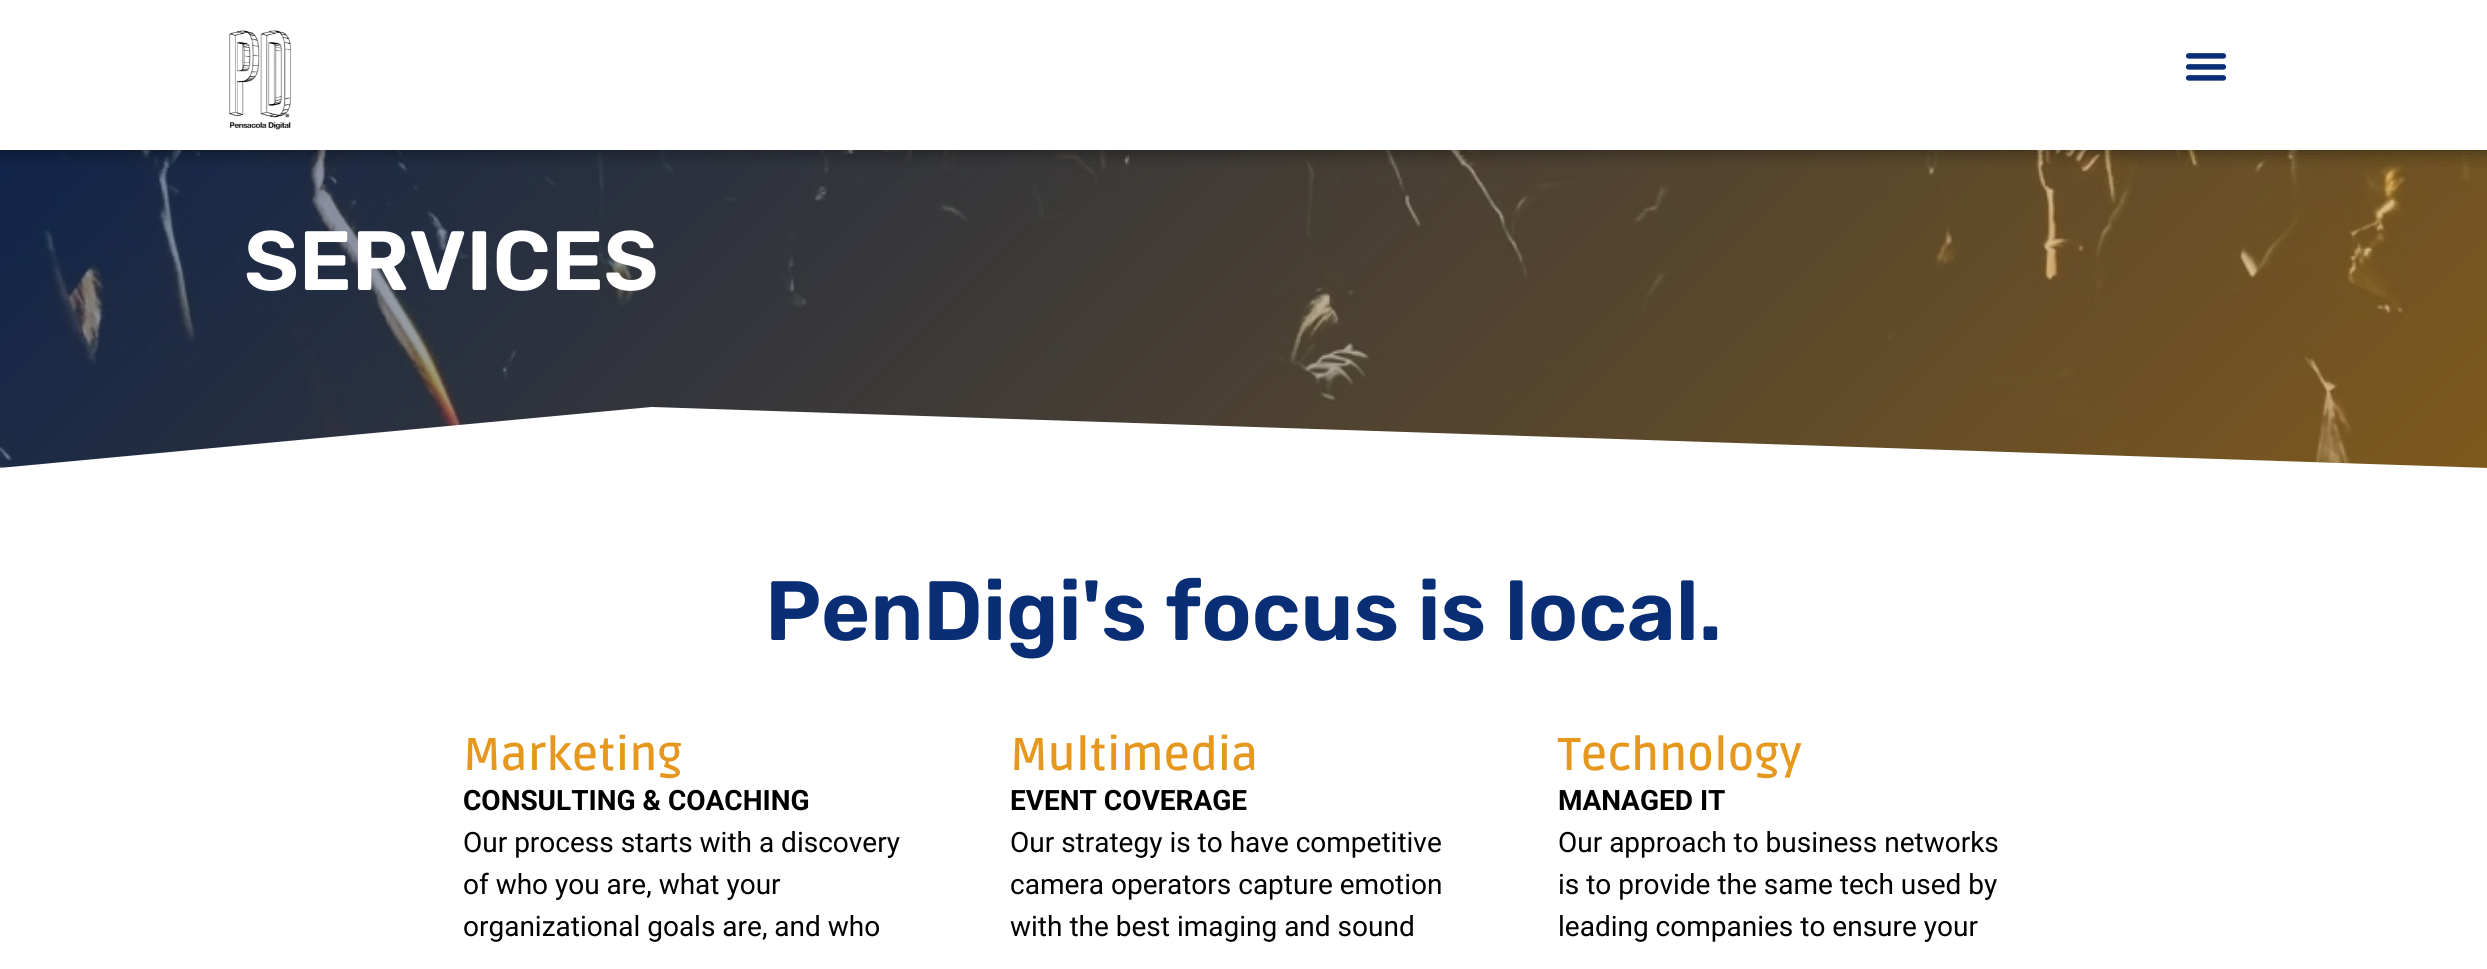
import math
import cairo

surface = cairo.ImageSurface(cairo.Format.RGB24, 2487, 969)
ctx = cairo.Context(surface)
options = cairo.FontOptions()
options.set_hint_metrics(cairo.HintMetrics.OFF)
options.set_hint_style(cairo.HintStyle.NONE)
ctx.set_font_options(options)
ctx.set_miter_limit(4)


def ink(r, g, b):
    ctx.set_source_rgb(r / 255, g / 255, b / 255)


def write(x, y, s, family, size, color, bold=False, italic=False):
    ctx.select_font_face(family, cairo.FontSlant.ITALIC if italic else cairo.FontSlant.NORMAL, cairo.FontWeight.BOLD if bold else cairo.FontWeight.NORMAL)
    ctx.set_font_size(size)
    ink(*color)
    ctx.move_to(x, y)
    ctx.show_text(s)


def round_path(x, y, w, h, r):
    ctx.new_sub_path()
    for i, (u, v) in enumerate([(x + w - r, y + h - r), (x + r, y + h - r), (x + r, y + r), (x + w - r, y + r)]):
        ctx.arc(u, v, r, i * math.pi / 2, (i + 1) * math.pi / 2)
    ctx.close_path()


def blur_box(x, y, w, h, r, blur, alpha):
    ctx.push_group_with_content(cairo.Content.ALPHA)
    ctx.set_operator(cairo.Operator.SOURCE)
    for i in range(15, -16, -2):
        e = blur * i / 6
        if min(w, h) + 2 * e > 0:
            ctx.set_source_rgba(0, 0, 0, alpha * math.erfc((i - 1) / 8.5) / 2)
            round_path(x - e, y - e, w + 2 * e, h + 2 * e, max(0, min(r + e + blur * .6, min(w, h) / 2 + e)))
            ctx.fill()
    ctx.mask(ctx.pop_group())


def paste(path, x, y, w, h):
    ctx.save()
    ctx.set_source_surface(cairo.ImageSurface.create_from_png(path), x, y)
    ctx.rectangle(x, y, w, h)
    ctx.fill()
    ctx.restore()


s1 = dict(family="Rubik SemiBold", size=84, color=(255, 255, 255))
s2 = dict(family="Rubik SemiBold", size=84, color=(10, 46, 117))
s3 = dict(family="Ruda SemiBold", size=46, color=(230, 152, 30))
s4 = dict(family="Roboto", size=28, color=(0, 0, 0), bold=True)
s5 = dict(family="Roboto", size=28, color=(0, 0, 0))

ink(255, 255, 255)
ctx.paint()
paste("pic3.png", 0, 150, 2487, 318)
ctx.save()
ctx.rectangle(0, 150, 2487, 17)
ctx.clip()
ink(0, 0, 0)
blur_box(0, 0, 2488, 150, 0, 10, 0.5)
ctx.restore()
paste("pic1.png", 229, 30, 63, 100)
paste("pic2.png", 2185, 53, 42, 28)
write(244, 290, "SERVICES", **s1)
ctx.new_path()
ctx.move_to(651, 407)
ctx.line_to(-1, 468)
ctx.line_to(-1, 472)
ctx.line_to(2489, 472)
ctx.line_to(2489, 468)
ctx.close_path()
ctx.fill()
write(765, 640, "PenDigi's focus is local.", **s2)
write(463, 770, "Marketing", **s3)
write(463, 810, "CONSULTING & COACHING", **s4)
write(463, 852, "Our process starts with a discovery", **s5)
write(463, 894, "of who you are, what your", **s5)
write(463, 936, "organizational goals are, and who", **s5)
write(1010, 770, "Multimedia", **s3)
write(1010, 810, "EVENT COVERAGE", **s4)
write(1010, 852, "Our strategy is to have competitive", **s5)
write(1010, 894, "camera operators capture emotion", **s5)
write(1010, 936, "with the best imaging and sound", **s5)
write(1558, 770, "Technology", **s3)
write(1558, 810, "MANAGED IT", **s4)
write(1558, 852, "Our approach to business networks", **s5)
write(1558, 894, "is to provide the same tech used by", **s5)
write(1558, 936, "leading companies to ensure your", **s5)
surface.write_to_png("screenshot.png")
